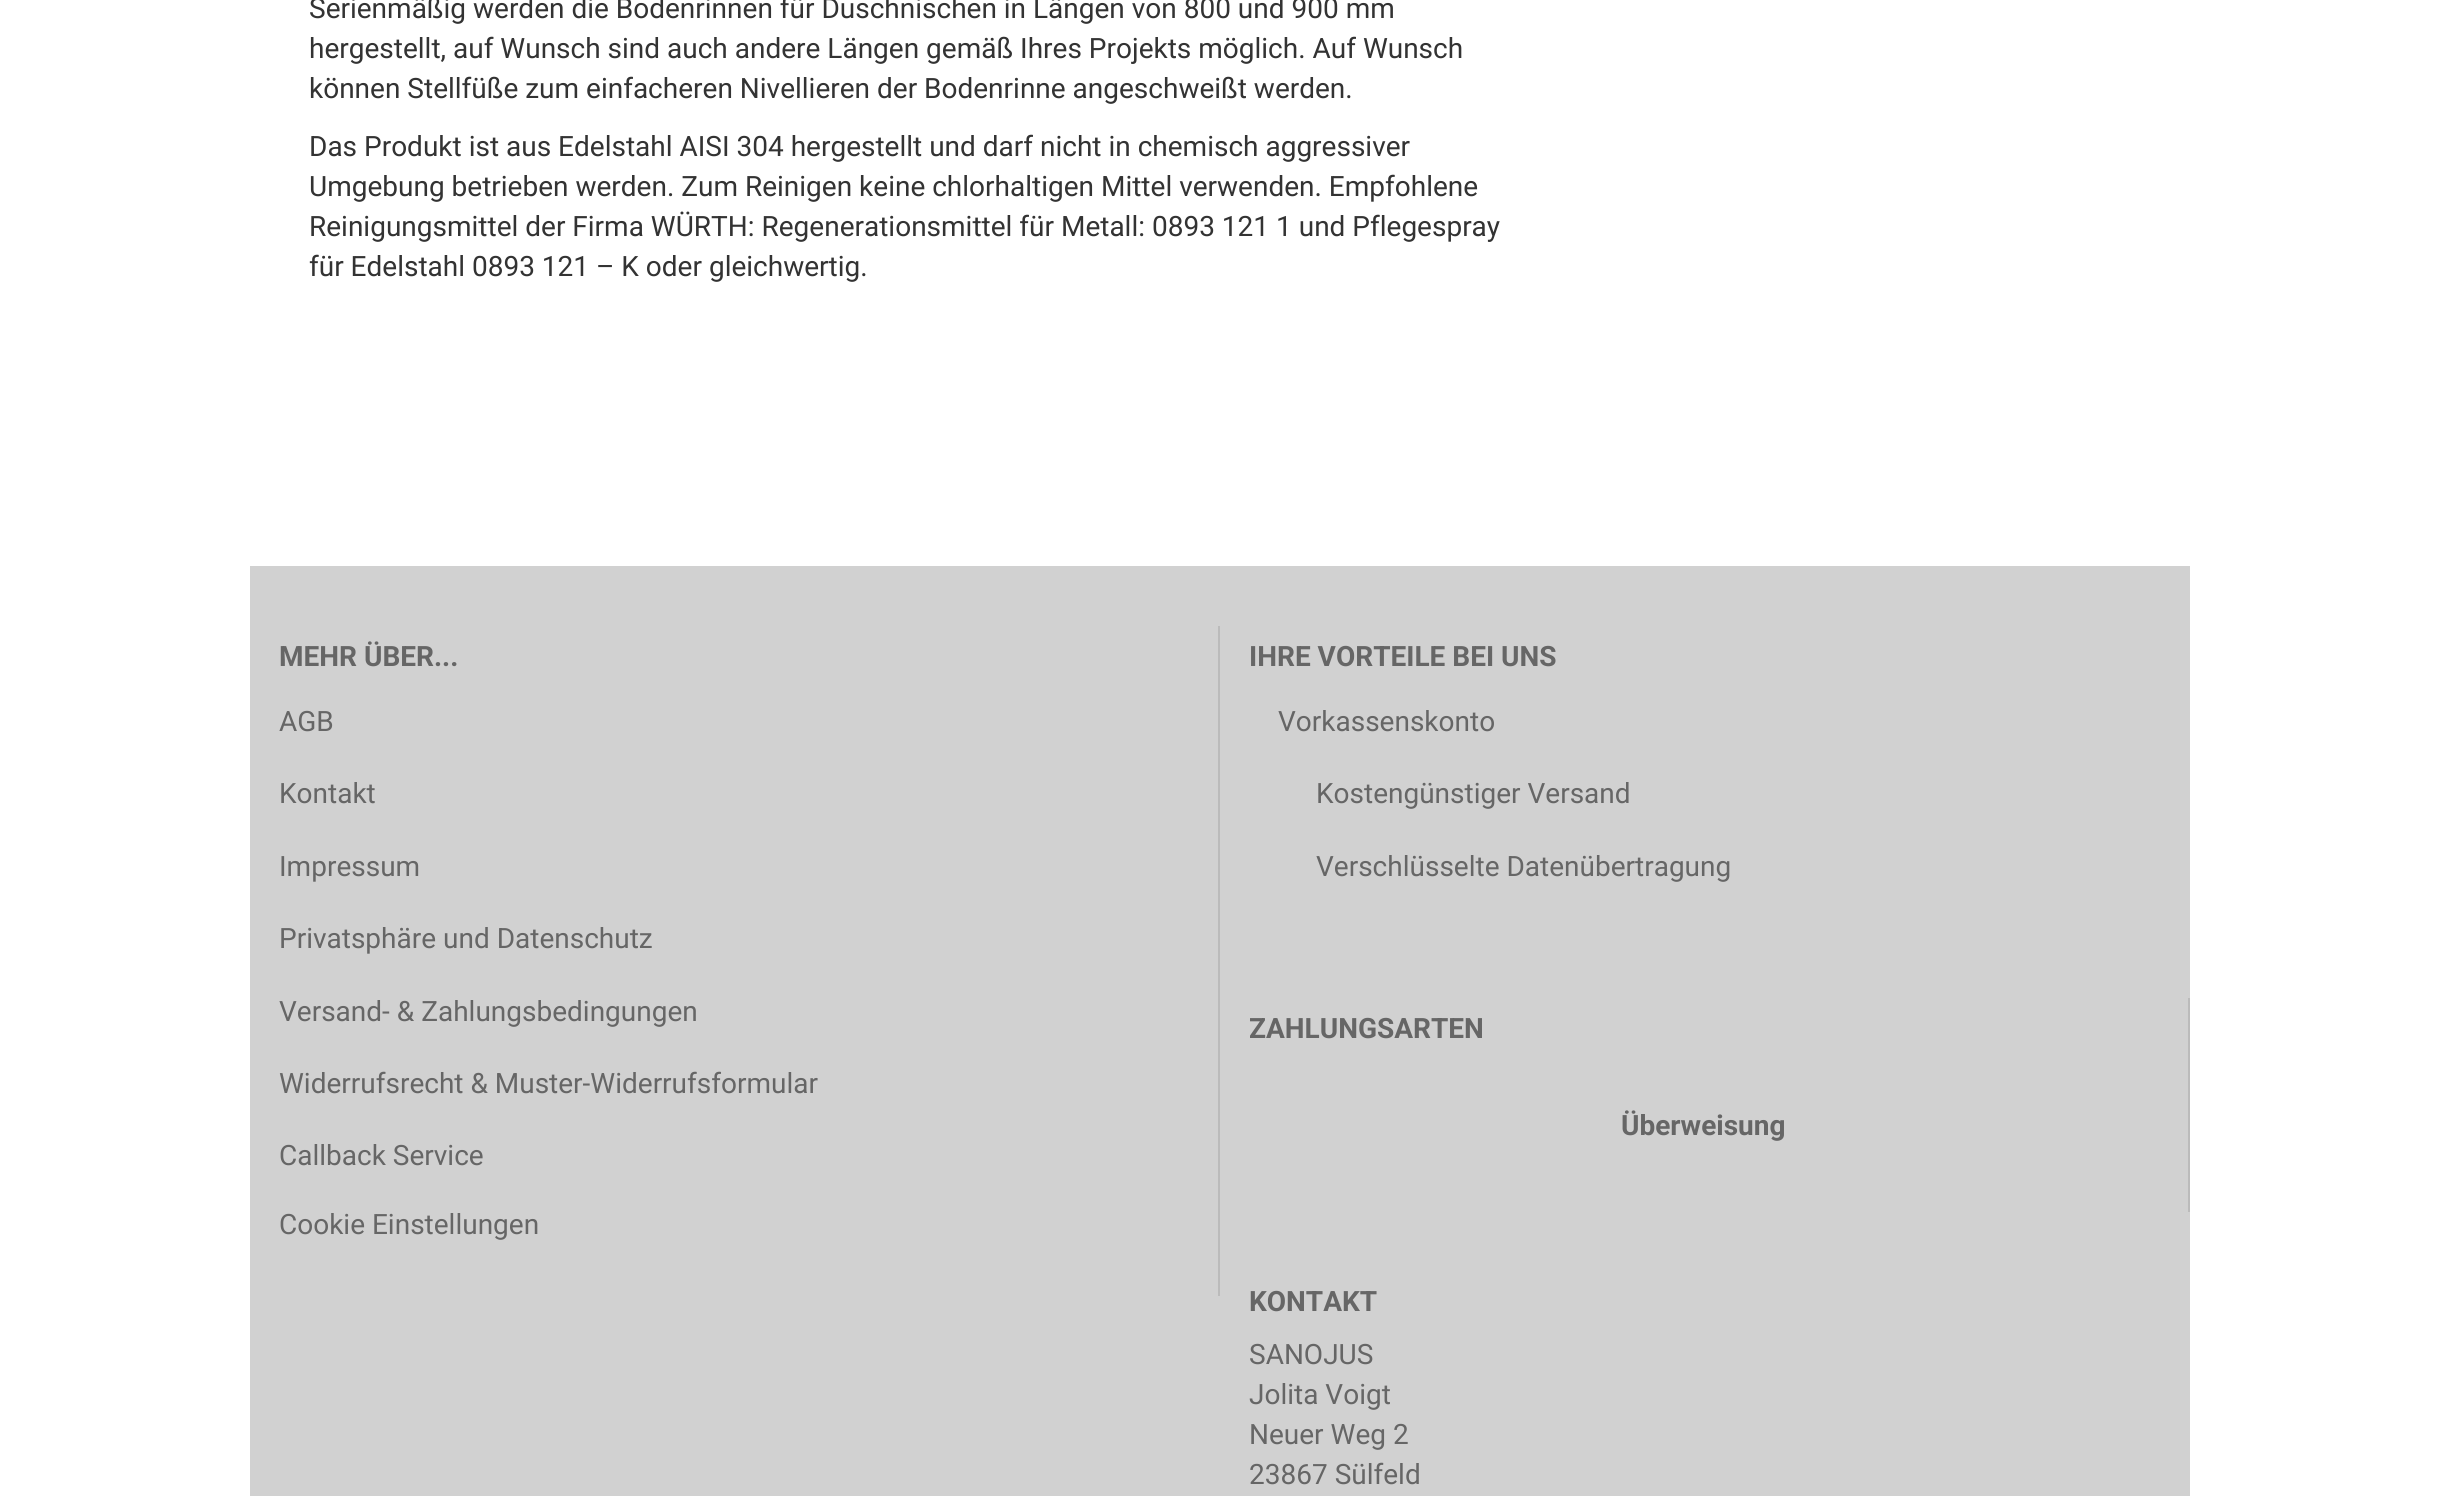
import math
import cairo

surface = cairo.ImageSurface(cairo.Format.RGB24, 2437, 1496)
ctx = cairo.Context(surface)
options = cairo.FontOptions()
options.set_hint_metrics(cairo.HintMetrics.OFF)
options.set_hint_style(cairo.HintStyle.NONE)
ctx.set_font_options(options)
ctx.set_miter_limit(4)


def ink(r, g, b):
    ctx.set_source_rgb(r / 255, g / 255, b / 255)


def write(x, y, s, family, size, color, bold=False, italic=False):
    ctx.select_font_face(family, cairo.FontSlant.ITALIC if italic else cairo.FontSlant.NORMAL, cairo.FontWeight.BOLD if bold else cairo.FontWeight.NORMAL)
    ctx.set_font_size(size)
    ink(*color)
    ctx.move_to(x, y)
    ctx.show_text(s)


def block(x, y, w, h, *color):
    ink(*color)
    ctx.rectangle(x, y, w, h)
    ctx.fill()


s1 = dict(family="Roboto", size=28, color=(51, 51, 51))
s2 = dict(family="Roboto", size=28, color=(102, 102, 102), bold=True)
s3 = dict(family="Roboto", size=28, color=(102, 102, 102))

ink(255, 255, 255)
ctx.paint()
write(309, 18, "Serienmäßig werden die Bodenrinnen für Duschnischen in Längen von 800 und 900 mm", **s1)
write(309, 58, "hergestellt, auf Wunsch sind auch andere Längen gemäß Ihres Projekts möglich. Auf Wunsch", **s1)
write(309, 98, "können Stellfüße zum einfacheren Nivellieren der Bodenrinne angeschweißt werden.", **s1)
write(309, 156, "Das Produkt ist aus Edelstahl AISI 304 hergestellt und darf nicht in chemisch aggressiver", **s1)
write(309, 196, "Umgebung betrieben werden. Zum Reinigen keine chlorhaltigen Mittel verwenden. Empfohlene", **s1)
write(309, 236, "Reinigungsmittel der Firma WÜRTH: Regenerationsmittel für Metall: 0893 121 1 und Pflegespray", **s1)
write(309, 276, "für Edelstahl 0893 121 – K oder gleichwertig.", **s1)
block(250, 566, 1940, 930, 209, 209, 209)
block(1218, 626, 2, 670, 187, 187, 187)
write(279, 666, "MEHR ÜBER...", **s2)
write(279, 731, "AGB", **s3)
write(279, 803, "Kontakt", **s3)
write(279, 876, "Impressum", **s3)
write(279, 948, "Privatsphäre und Datenschutz", **s3)
write(279, 1021, "Versand- & Zahlungsbedingungen", **s3)
write(279, 1093, "Widerrufsrecht & Muster-Widerrufsformular", **s3)
write(279, 1165, "Callback Service", **s3)
write(279, 1234, "Cookie Einstellungen", **s3)
write(1249, 666, "IHRE VORTEILE BEI UNS", **s2)
write(1278, 731, "Vorkassenskonto", **s3)
write(1316, 803, "Kostengünstiger Versand", **s3)
write(1316, 876, "Verschlüsselte Datenübertragung", **s3)
block(2188, 998, 2, 214, 187, 187, 187)
write(1249, 1038, "ZAHLUNGSARTEN", **s2)
write(1621, 1135, "Überweisung", **s2)
write(1249, 1311, "KONTAKT", **s2)
write(1249, 1364, "SANOJUS", **s3)
write(1249, 1404, "Jolita Voigt", **s3)
write(1249, 1444, "Neuer Weg 2", **s3)
write(1249, 1484, "23867 Sülfeld", **s3)
surface.write_to_png("screenshot.png")
